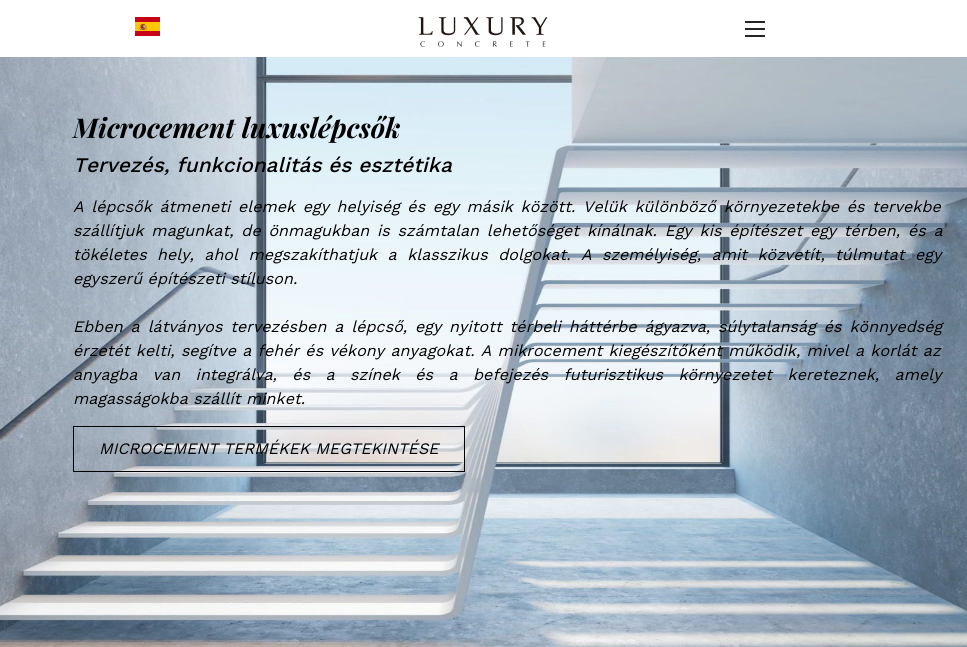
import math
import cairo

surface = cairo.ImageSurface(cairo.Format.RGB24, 967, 647)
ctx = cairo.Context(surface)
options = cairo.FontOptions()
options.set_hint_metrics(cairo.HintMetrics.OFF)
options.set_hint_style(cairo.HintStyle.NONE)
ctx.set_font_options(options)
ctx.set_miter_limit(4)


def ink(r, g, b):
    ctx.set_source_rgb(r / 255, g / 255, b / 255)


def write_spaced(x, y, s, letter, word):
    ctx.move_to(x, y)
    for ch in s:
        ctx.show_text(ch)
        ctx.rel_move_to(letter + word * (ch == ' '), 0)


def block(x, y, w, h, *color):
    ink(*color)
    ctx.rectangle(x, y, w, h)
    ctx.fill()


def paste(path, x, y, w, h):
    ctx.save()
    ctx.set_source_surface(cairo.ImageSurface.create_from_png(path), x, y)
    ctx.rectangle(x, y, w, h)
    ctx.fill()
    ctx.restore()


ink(255, 255, 255)
ctx.paint()
paste("pic1.png", 135, 17, 25, 19)
paste("pic2.png", 418, 17, 130, 30)
block(745, 21, 20, 2, 37, 37, 37)
block(745, 28, 20, 2, 37, 37, 37)
block(745, 35, 20, 2, 37, 37, 37)
paste("pic3.png", 0, 57, 967, 590)
ctx.select_font_face("Playfair Display", cairo.FontSlant.ITALIC, cairo.FontWeight.BOLD)
ctx.set_font_size(27.25)
ink(0, 0, 0)
write_spaced(73, 138, "Microcement luxuslépcsők", 0.06, 0)
ctx.select_font_face("Work Sans Medium", cairo.FontSlant.ITALIC)
ctx.set_font_size(20.75)
write_spaced(73, 172, "Tervezés, funkcionalitás és esztétika", 0.06, 0)
ctx.select_font_face("Work Sans", cairo.FontSlant.ITALIC)
ctx.set_font_size(16)
write_spaced(73, 212, "A lépcsők átmeneti elemek egy helyiség és egy másik között. Velük különböző környezetekbe és tervekbe", 0.06, 2.1)
write_spaced(73, 236, "szállítjuk magunkat, de önmagukban is számtalan lehetőséget kínálnak. Egy kis építészet egy térben, és a", 0.06, 2.25)
write_spaced(73, 260, "tökéletes hely, ahol megszakíthatjuk a klasszikus dolgokat. A személyiség, amit közvetít, túlmutat egy", 0.06, 4.9)
write_spaced(73, 284, "egyszerű építészeti stíluson.", 0.06, 0)
write_spaced(73, 332, "Ebben a látványos tervezésben a lépcső, egy nyitott térbeli háttérbe ágyazva, súlytalanság és könnyedség", 0.06, 2.4)
write_spaced(73, 356, "érzetét kelti, segítve a fehér és vékony anyagokat. A mikrocement kiegészítőként működik, mivel a korlát az", 0.06, 0.75)
write_spaced(73, 380, "anyagba van integrálva, és a színek és a befejezés futurisztikus környezetet kereteznek, amely", 0.06, 9.9)
write_spaced(73, 404, "magasságokba szállít minket.", 0.06, 0)
ctx.rectangle(73.5, 426.5, 391, 45)
ctx.set_line_width(1)
ctx.stroke()
write_spaced(99, 454, "MICROCEMENT TERMÉKEK MEGTEKINTÉSE", 0.06, 0)
surface.write_to_png("screenshot.png")
